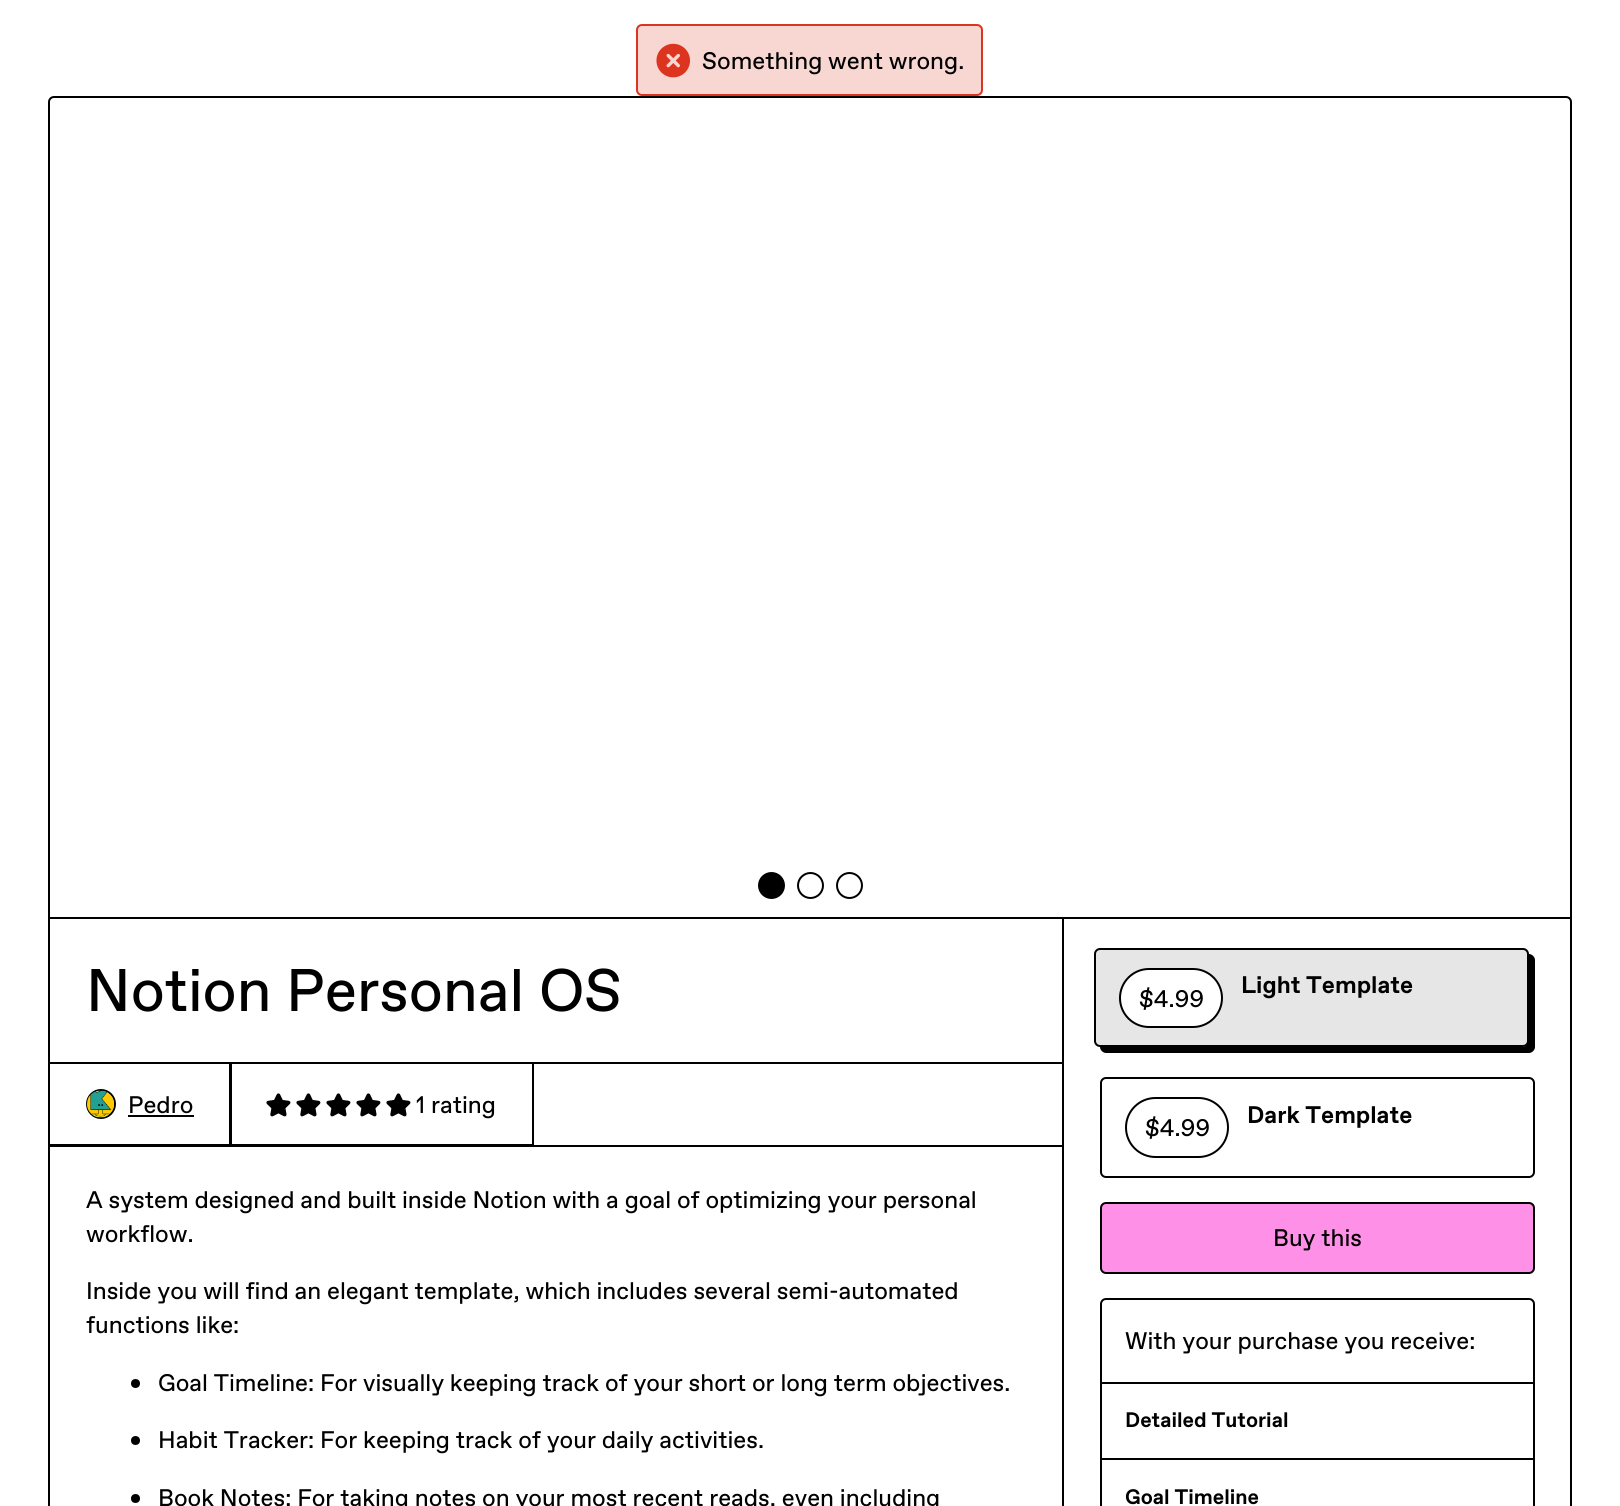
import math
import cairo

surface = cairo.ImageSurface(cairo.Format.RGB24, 1620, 1506)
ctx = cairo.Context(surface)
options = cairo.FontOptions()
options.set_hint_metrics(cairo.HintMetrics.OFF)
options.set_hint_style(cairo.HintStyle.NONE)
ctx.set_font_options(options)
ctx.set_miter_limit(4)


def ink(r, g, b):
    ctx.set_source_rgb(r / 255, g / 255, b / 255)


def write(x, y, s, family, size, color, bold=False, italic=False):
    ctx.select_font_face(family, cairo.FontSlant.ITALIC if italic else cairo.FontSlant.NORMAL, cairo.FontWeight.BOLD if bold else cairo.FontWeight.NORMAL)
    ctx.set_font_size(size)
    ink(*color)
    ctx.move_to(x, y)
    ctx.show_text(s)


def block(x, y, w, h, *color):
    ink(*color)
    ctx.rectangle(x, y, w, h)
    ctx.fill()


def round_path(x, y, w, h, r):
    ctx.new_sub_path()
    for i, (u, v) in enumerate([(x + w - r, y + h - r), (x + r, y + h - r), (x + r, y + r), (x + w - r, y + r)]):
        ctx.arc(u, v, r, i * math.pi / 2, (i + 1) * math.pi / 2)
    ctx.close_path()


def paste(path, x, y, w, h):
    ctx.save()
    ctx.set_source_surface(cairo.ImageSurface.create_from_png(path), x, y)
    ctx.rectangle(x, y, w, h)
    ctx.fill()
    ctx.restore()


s1 = dict(family="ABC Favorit", size=24, color=(0, 0, 0))
s2 = dict(family="ABC Favorit", size=60, color=(0, 0, 0))
s3 = dict(family="ABC Favorit", size=24, color=(0, 0, 0), bold=True)
s4 = dict(family="ABC Favorit", size=21, color=(0, 0, 0), bold=True)

ink(255, 255, 255)
ctx.paint()
ink(248, 214, 210)
round_path(637, 25, 345, 70, 5)
ctx.fill_preserve()
ink(220, 52, 30)
ctx.stroke()
paste("pic1.png", 656, 43, 34, 35)
write(702, 69, "Something went wrong.", **s1)
round_path(49, 97, 1522, 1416, 5)
ctx.stroke()
block(1062, 918, 2, 588, 0, 0, 0)
block(50, 917, 1521, 2, 0, 0, 0)
ctx.arc(771.5, 885.5, 12.5, 0, 2 * math.pi)
ctx.fill_preserve()
ctx.stroke()
ctx.arc(810.5, 885.5, 12.5, 0, 2 * math.pi)
ctx.stroke()
ctx.arc(849.5, 885.5, 12.5, 0, 2 * math.pi)
ctx.stroke()
write(86, 1011, "Notion Personal OS", **s2)
block(534, 1062, 528, 2, 0, 0, 0)
block(50, 1145, 1012, 2, 0, 0, 0)
ctx.rectangle(49, 1063, 181, 82)
ctx.stroke()
ctx.arc(101, 1104, 14, 0, 2 * math.pi)
ctx.stroke()
paste("pic2.png", 87, 1090, 27, 28)
write(128, 1113, "Pedro", **s1)
block(128, 1115, 66, 2, 0, 0, 0)
ctx.rectangle(231, 1063, 302, 82)
ctx.stroke()
paste("pic3.png", 266, 1093, 25, 24)
paste("pic3.png", 296, 1093, 25, 24)
paste("pic3.png", 326, 1093, 25, 24)
paste("pic3.png", 356, 1093, 25, 24)
paste("pic3.png", 386, 1093, 25, 24)
write(416, 1113, "1 rating", **s1)
write(86, 1208, "A system designed and built inside Notion with a goal of optimizing your personal", **s1)
write(86, 1242, "workflow.", **s1)
write(86, 1299, "Inside you will find an elegant template, which includes several semi-automated", **s1)
write(86, 1333, "functions like:", **s1)
ctx.new_path()
ctx.arc(135.5, 1383.5, 4.5, 0, 2 * math.pi)
ctx.fill()
write(158, 1391, "Goal Timeline: For visually keeping track of your short or long term objectives.", **s1)
ctx.new_path()
ctx.arc(135.5, 1440.5, 4.5, 0, 2 * math.pi)
ctx.fill()
write(158, 1448, "Habit Tracker: For keeping track of your daily activities.", **s1)
ctx.new_path()
ctx.arc(135.5, 1498.5, 4.5, 0, 2 * math.pi)
ctx.fill()
write(158, 1506, "Book Notes: For taking notes on your most recent reads, even including", **s1)
ctx.new_path()
ctx.move_to(1100, 1047)
ctx.curve_to(1100, 1050, 1103, 1053, 1106, 1053)
ctx.line_to(1529, 1053)
ctx.curve_to(1532, 1053, 1535, 1050, 1535, 1047)
ctx.line_to(1535, 960)
ctx.curve_to(1535, 957, 1532, 954, 1529, 954)
ctx.line_to(1528, 954)
ctx.line_to(1528, 1041)
ctx.curve_to(1528, 1044, 1526, 1047, 1522, 1047)
ctx.close_path()
ctx.fill()
ctx.set_source_rgba(0, 0, 0, 0.1)
round_path(1095, 949, 433, 97, 5)
ctx.fill_preserve()
ink(0, 0, 0)
ctx.stroke()
ink(255, 255, 255)
round_path(1120, 969, 102, 58, 29)
ctx.fill_preserve()
ink(0, 0, 0)
ctx.stroke()
write(1139, 1007, "$4.99", **s1)
write(1241, 993, "Light Template", **s3)
round_path(1101, 1078, 433, 99, 5)
ctx.stroke()
round_path(1126, 1098, 102, 59, 29.5)
ctx.stroke()
write(1145, 1136, "$4.99", **s1)
write(1247, 1123, "Dark Template", **s3)
ink(255, 144, 232)
round_path(1101, 1203, 433, 70, 5)
ctx.fill_preserve()
ink(0, 0, 0)
ctx.stroke()
write(1273, 1246, "Buy this", **s1)
round_path(1101, 1299, 433, 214, 5)
ctx.stroke()
write(1125, 1349, "With your purchase you receive:", **s1)
block(1101, 1382, 432, 2, 0, 0, 0)
write(1125, 1427, "Detailed Tutorial", **s4)
block(1101, 1458, 432, 2, 0, 0, 0)
write(1125, 1504, "Goal Timeline", **s4)
surface.write_to_png("screenshot.png")
